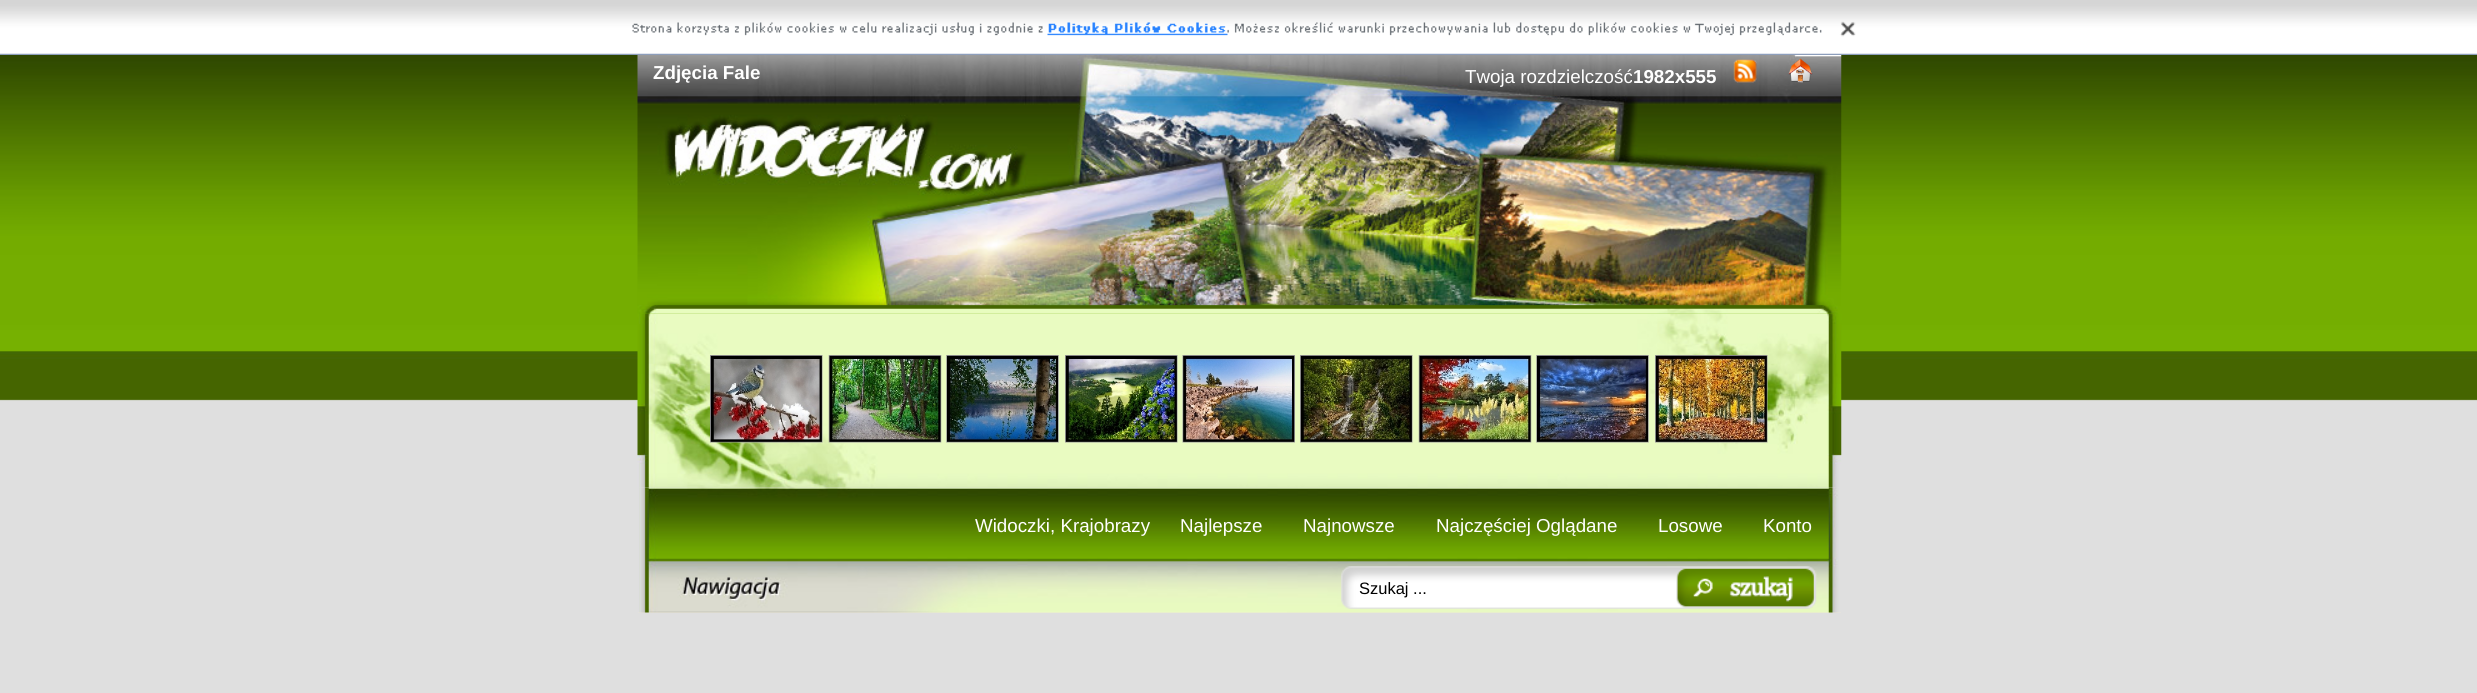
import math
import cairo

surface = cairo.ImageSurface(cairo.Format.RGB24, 2477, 693)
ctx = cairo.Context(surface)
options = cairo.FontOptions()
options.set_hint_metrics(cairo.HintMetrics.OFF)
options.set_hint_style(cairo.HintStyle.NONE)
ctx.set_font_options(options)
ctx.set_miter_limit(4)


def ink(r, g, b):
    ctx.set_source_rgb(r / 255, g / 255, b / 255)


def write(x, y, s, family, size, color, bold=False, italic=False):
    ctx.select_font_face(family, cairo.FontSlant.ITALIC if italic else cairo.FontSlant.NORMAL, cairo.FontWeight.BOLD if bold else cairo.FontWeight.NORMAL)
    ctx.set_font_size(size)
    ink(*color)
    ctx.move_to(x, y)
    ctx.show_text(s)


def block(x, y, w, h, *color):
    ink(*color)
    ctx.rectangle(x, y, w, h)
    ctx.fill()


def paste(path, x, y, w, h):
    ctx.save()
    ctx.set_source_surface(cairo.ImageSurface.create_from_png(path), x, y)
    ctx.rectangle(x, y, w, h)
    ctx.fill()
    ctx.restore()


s1 = dict(family="Liberation Sans", size=18.75, color=(255, 255, 255), bold=True)
s2 = dict(family="Liberation Sans", size=18.75, color=(255, 255, 255))
s3 = dict(family="Liberation Sans", size=16.5, color=(0, 0, 0))

ink(223, 223, 223)
ctx.paint()
paste("pic1.png", 0, 55, 2477, 346)
paste("pic2.png", 0, 0, 2477, 55)
paste("pic3.png", 632, 21, 1224, 16)
paste("pic4.png", 637, 55, 1205, 259)
write(653, 79, "Zdjęcia Fale", **s1)
write(1465, 83, "Twoja rozdzielczość", **s2)
write(1633, 83, "1982x555", **s1)
paste("pic5.png", 1733, 59, 24, 24)
paste("pic6.png", 1788, 58, 25, 25)
paste("pic7.png", 637, 313, 1205, 175)
paste("pic8.png", 710, 355, 113, 88)
paste("pic9.png", 828, 355, 114, 88)
paste("pic10.png", 946, 355, 113, 88)
paste("pic11.png", 1065, 355, 113, 88)
paste("pic12.png", 1182, 355, 113, 88)
paste("pic13.png", 1300, 355, 113, 88)
paste("pic14.png", 1418, 355, 114, 88)
paste("pic15.png", 1536, 355, 113, 88)
paste("pic16.png", 1655, 355, 113, 88)
block(638, 612, 1203, 1, 232, 229, 217)
paste("pic17.png", 638, 487, 1203, 126)
write(975, 532, "Widoczki, Krajobrazy", **s2)
write(1180, 532, "Najlepsze", **s2)
write(1303, 532, "Najnowsze", **s2)
write(1436, 532, "Najczęściej Oglądane", **s2)
write(1658, 532, "Losowe", **s2)
write(1763, 532, "Konto", **s2)
paste("pic18.png", 1341, 566, 476, 43)
write(1359, 594, "Szukaj ...", **s3)
surface.write_to_png("screenshot.png")
